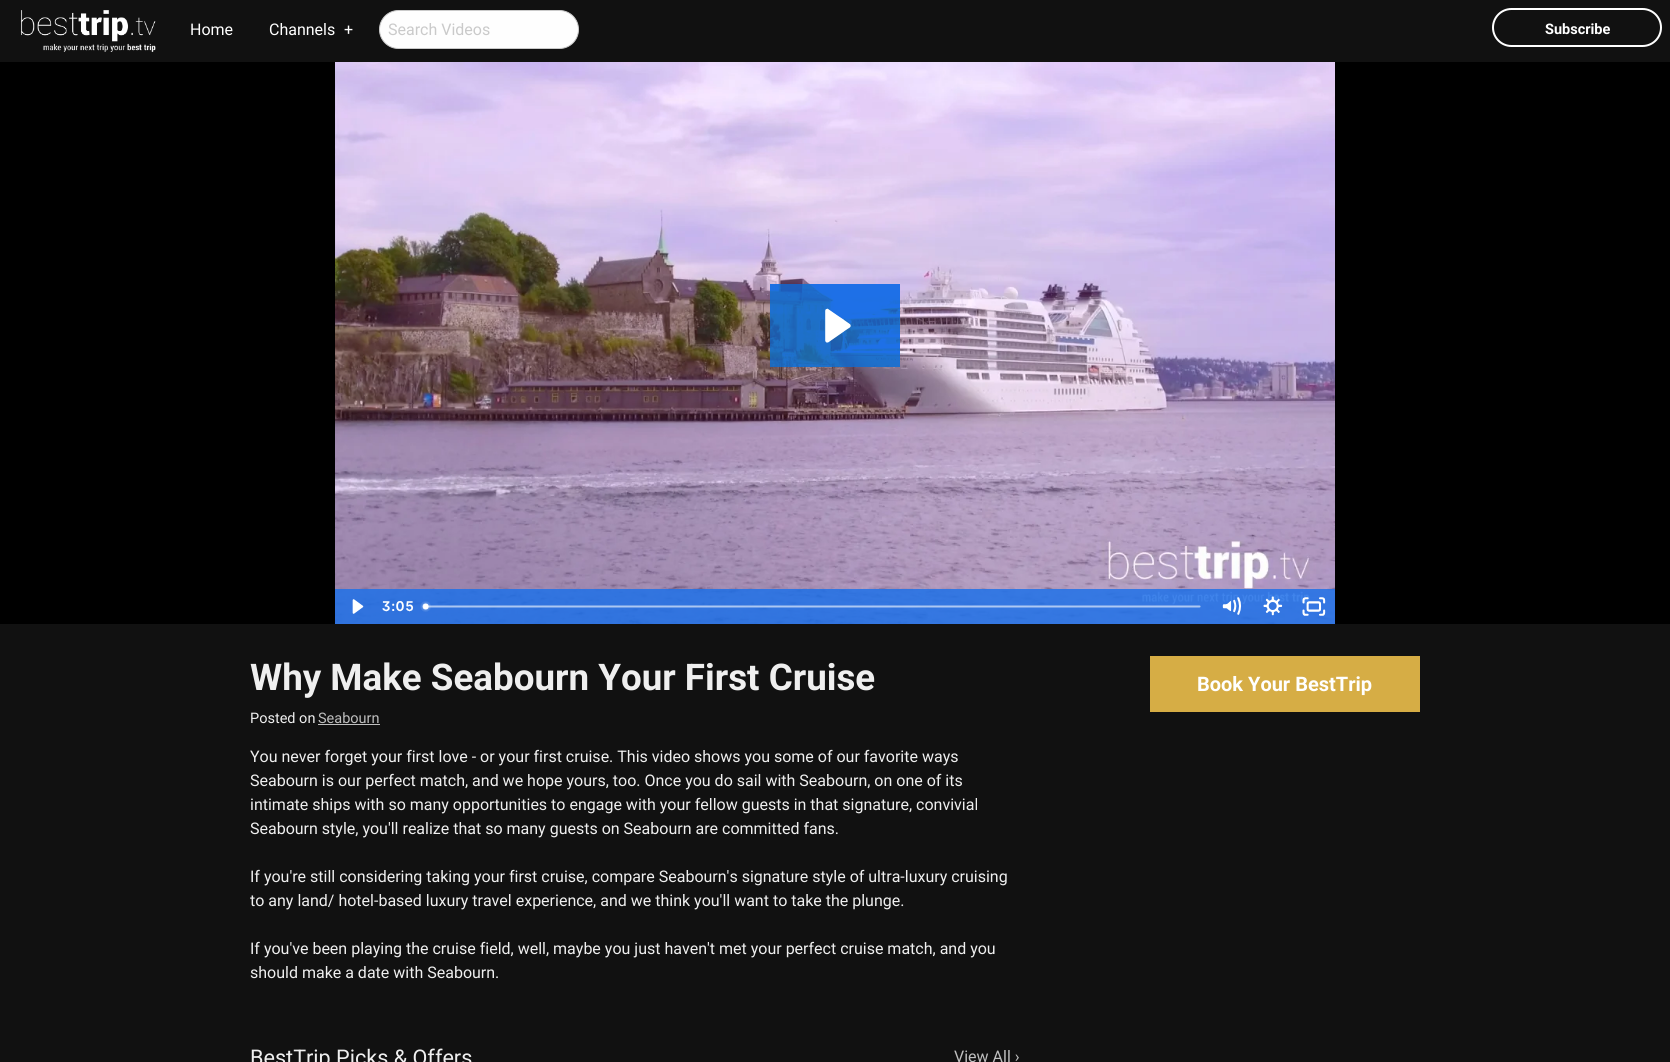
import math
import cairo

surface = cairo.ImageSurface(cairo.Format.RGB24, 1670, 1062)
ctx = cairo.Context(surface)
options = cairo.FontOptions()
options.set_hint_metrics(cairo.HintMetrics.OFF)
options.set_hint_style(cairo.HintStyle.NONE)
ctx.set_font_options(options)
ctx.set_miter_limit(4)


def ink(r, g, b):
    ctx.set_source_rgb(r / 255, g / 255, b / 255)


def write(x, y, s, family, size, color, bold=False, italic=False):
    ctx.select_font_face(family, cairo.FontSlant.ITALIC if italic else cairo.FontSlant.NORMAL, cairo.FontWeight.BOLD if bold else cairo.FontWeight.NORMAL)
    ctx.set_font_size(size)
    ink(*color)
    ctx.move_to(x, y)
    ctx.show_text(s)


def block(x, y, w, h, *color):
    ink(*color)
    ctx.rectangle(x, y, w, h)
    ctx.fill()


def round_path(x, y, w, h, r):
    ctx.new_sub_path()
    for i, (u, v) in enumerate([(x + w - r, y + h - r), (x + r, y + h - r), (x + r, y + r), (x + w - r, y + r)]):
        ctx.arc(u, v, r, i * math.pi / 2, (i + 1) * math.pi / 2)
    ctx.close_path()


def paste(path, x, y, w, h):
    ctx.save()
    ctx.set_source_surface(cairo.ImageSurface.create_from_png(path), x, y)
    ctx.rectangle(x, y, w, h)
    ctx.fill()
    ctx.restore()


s1 = dict(family="Roboto", size=16, color=(255, 255, 255))
s2 = dict(family="Roboto", size=16, color=(202, 202, 202))
s3 = dict(family="Roboto", size=14.5, color=(255, 255, 255), bold=True)
s4 = dict(family="Roboto", size=36.75, color=(239, 239, 239), bold=True)
s5 = dict(family="Roboto", size=14.5, color=(239, 239, 239))
s6 = dict(family="Roboto", size=14.5, color=(191, 191, 191))
s7 = dict(family="Roboto", size=20, color=(255, 255, 255), bold=True)
s8 = dict(family="Roboto", size=16, color=(239, 239, 239))
s9 = dict(family="Roboto", size=21.6, color=(239, 239, 239))
s10 = dict(family="Roboto", size=16, color=(191, 191, 191))

ink(17, 17, 17)
ctx.paint()
paste("pic1.png", 21, 10, 135, 42)
write(190, 35, "Home", **s1)
write(269, 35, "Channels", **s1)
write(344, 35, "+", **s1)
ink(254, 254, 254)
round_path(379.5, 10.5, 199, 38, 19)
ctx.fill_preserve()
ink(202, 202, 202)
ctx.set_line_width(1)
ctx.stroke()
write(388, 35, "Search Videos", **s2)
round_path(1493, 9, 168, 37, 18.5)
ink(255, 255, 255)
ctx.set_line_width(2)
ctx.stroke()
write(1545, 34, "Subscribe", **s3)
block(0, 62, 1670, 562, 0, 0, 0)
paste("pic2.png", 335, 62, 1000, 562)
write(250, 690, "Why Make Seabourn Your First Cruise", **s4)
write(250, 723, "Posted on", **s5)
write(318, 723, "Seabourn", **s6)
block(318, 724, 62, 1, 191, 191, 191)
block(1150, 656, 270, 56, 214, 173, 69)
write(1197, 691, "Book Your BestTrip", **s7)
write(250, 762, "You never forget your first love - or your first cruise. This video shows you some of our favorite ways", **s8)
write(250, 786, "Seabourn is our perfect match, and we hope yours, too. Once you do sail with Seabourn, on one of its", **s8)
write(250, 810, "intimate ships with so many opportunities to engage with your fellow guests in that signature, convivial", **s8)
write(250, 834, "Seabourn style, you'll realize that so many guests on Seabourn are committed fans.", **s8)
write(250, 882, "If you're still considering taking your first cruise, compare Seabourn's signature style of ultra-luxury cruising", **s8)
write(250, 906, "to any land/ hotel-based luxury travel experience, and we think you'll want to take the plunge.", **s8)
write(250, 954, "If you've been playing the cruise field, well, maybe you just haven't met your perfect cruise match, and you", **s8)
write(250, 978, "should make a date with Seabourn.", **s8)
write(250, 1065, "BestTrip Picks & Offers", **s9)
write(954, 1062, "View All ›", **s10)
surface.write_to_png("screenshot.png")
